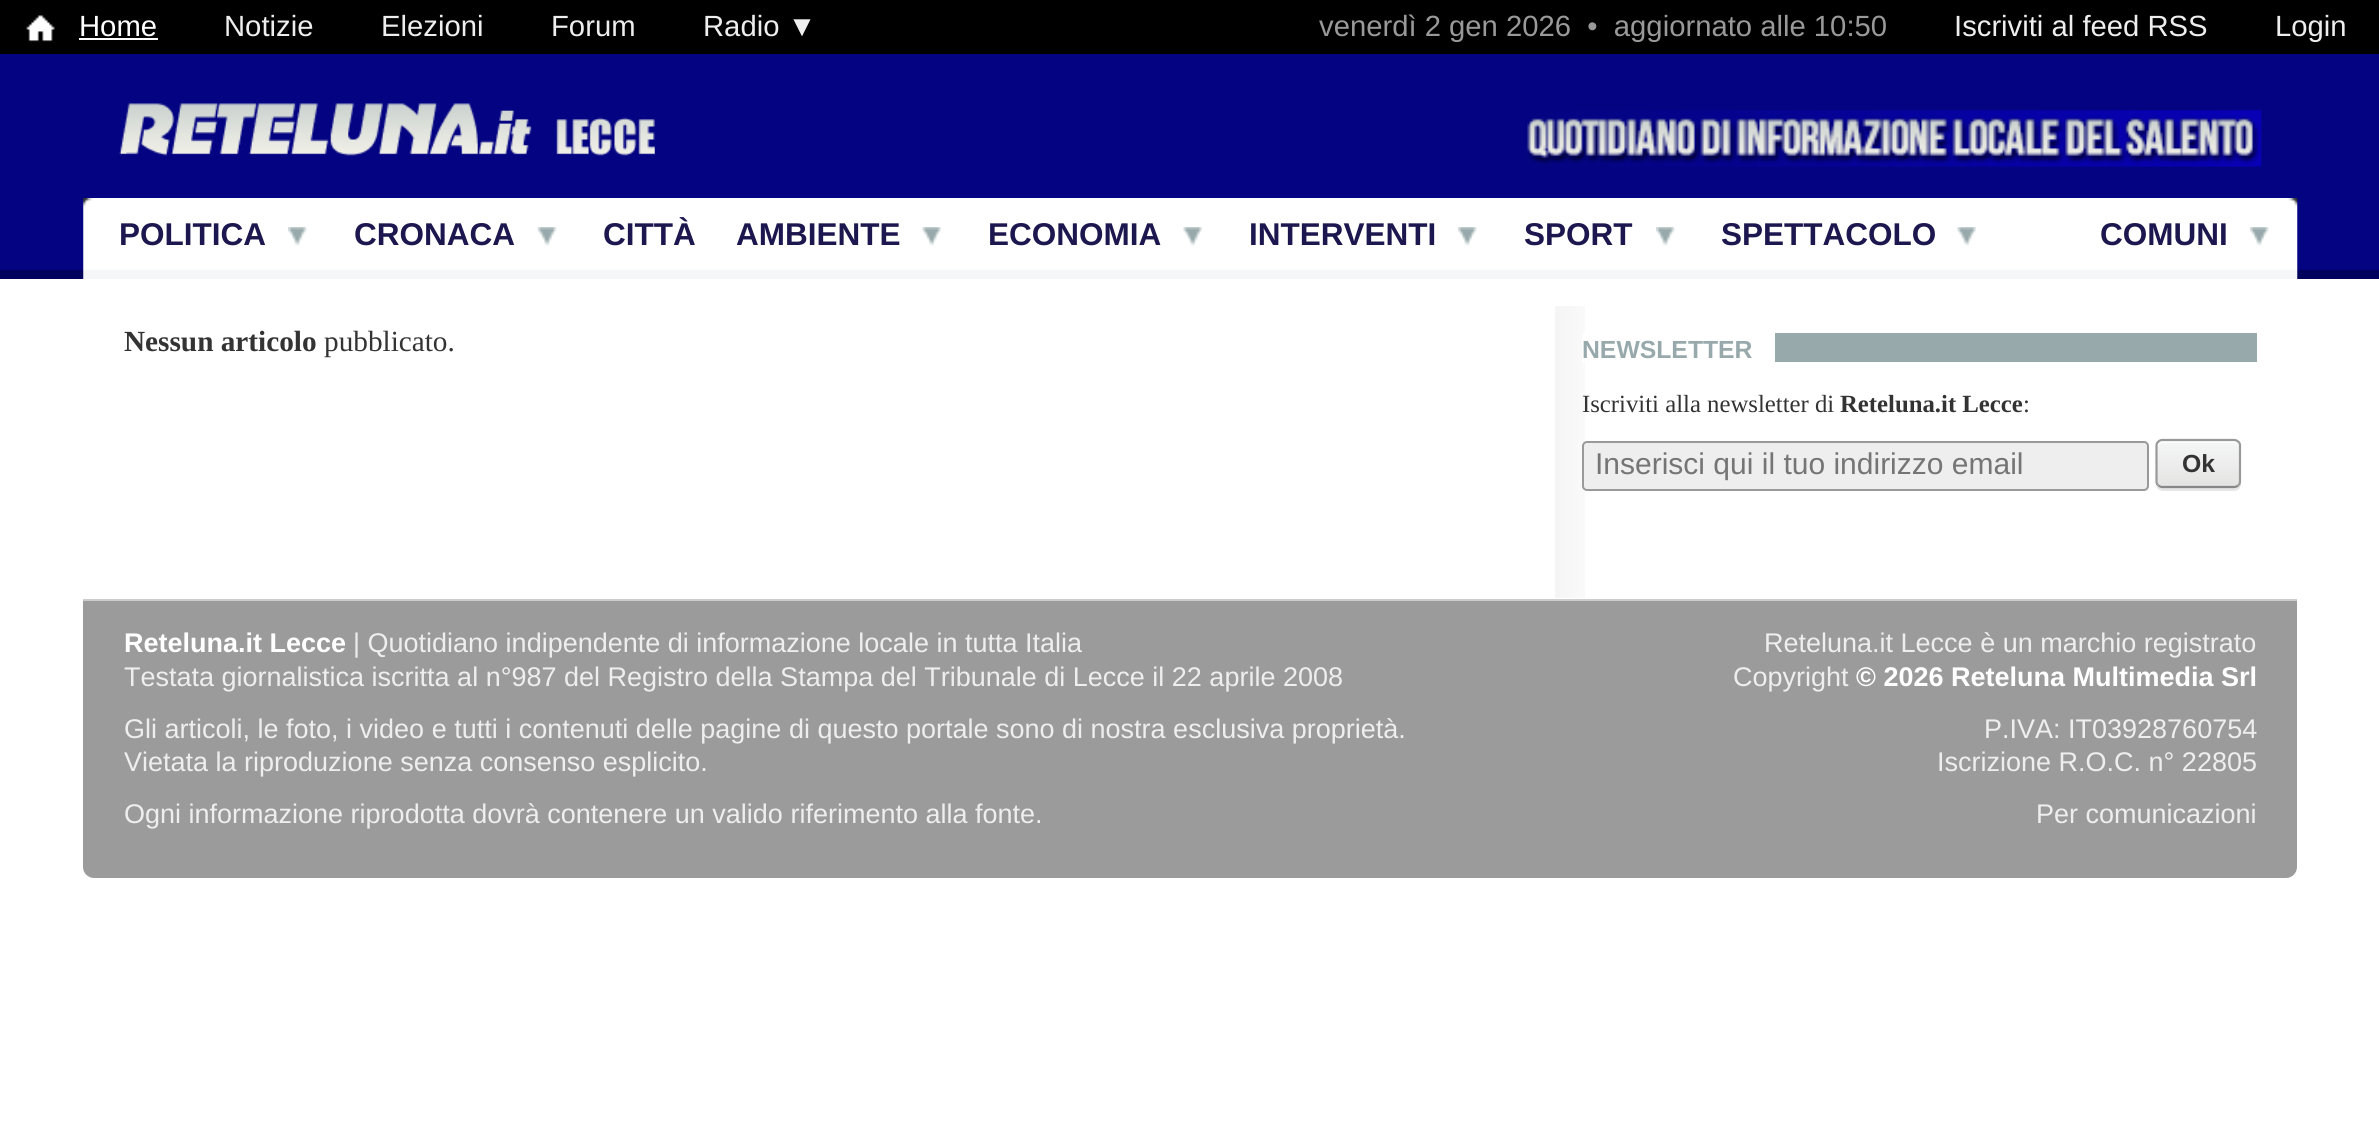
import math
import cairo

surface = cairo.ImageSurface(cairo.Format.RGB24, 2379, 1134)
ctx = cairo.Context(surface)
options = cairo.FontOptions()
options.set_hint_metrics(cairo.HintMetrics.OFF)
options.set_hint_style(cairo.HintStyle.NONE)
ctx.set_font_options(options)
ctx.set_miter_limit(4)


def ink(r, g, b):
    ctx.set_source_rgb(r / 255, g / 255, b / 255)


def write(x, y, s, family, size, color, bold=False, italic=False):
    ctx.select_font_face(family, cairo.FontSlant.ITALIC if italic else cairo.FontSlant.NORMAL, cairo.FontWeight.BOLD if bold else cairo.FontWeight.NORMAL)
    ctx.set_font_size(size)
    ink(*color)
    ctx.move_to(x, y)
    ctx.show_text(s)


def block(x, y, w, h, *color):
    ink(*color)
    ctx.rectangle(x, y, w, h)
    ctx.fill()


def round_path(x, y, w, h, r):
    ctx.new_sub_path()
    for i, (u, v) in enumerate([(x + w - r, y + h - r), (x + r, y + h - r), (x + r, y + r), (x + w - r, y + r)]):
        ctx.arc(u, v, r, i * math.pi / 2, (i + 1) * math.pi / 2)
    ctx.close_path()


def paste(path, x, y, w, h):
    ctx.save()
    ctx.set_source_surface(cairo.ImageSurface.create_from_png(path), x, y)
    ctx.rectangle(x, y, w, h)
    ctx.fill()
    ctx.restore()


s1 = dict(family="Liberation Sans", size=29.25, color=(255, 255, 255))
s2 = dict(family="Liberation Sans", size=29.25, color=(238, 238, 238))
s3 = dict(family="Liberation Sans", size=29.25, color=(153, 153, 153))
s4 = dict(family="Liberation Sans", size=31.5, color=(28, 23, 78), bold=True)
s5 = dict(family="Liberation Serif", size=29.25, color=(51, 51, 51), bold=True)
s6 = dict(family="Liberation Serif", size=29.25, color=(51, 51, 51))
s7 = dict(family="Liberation Sans", size=24.75, color=(152, 169, 172), bold=True)
s8 = dict(family="Liberation Serif", size=24.75, color=(51, 51, 51))
s9 = dict(family="Liberation Serif", size=24.75, color=(51, 51, 51), bold=True)
s10 = dict(family="Liberation Sans", size=30, color=(117, 117, 117))
s11 = dict(family="Liberation Sans", size=24.75, color=(51, 51, 51), bold=True)
s12 = dict(family="Liberation Sans", size=27, color=(255, 255, 255), bold=True)
s13 = dict(family="Liberation Sans", size=27, color=(238, 238, 238))

ink(255, 255, 255)
ctx.paint()
paste("pic1.png", 0, 54, 2379, 225)
block(0, 0, 2379, 54, 0, 0, 0)
paste("pic2.png", 26, 15, 29, 27)
write(79, 36, "Home", **s1)
block(79, 38, 79, 2, 255, 255, 255)
write(224, 36, "Notizie", **s2)
write(381, 36, "Elezioni", **s2)
write(551, 36, "Forum", **s2)
write(703, 36, "Radio ▼", **s2)
write(1319, 36, "venerdì 2 gen 2026  •  aggiornato alle 10:50", **s3)
write(1954, 36, "Iscriviti al feed RSS", **s2)
write(2275, 36, "Login", **s2)
paste("pic3.png", 119, 103, 536, 53)
paste("pic4.png", 1527, 110, 735, 57)
paste("pic5.png", 83, 198, 2215, 81)
paste("pic6.png", 288, 227, 19, 19)
write(119, 245, "POLITICA", **s4)
paste("pic7.png", 537, 227, 20, 19)
write(354, 245, "CRONACA", **s4)
write(603, 245, "CITTÀ", **s4)
paste("pic8.png", 922, 227, 19, 19)
write(736, 245, "AMBIENTE", **s4)
paste("pic9.png", 1183, 227, 19, 19)
write(988, 245, "ECONOMIA", **s4)
paste("pic6.png", 1458, 227, 19, 19)
write(1249, 245, "INTERVENTI", **s4)
paste("pic6.png", 1656, 227, 19, 19)
write(1524, 245, "SPORT", **s4)
paste("pic8.png", 1957, 227, 19, 19)
write(1721, 245, "SPETTACOLO", **s4)
paste("pic6.png", 2250, 227, 19, 19)
write(2100, 245, "COMUNI", **s4)
write(124, 351, "Nessun articolo", **s5)
write(324, 351, "pubblicato.", **s6)
paste("pic10.png", 1555, 306, 30, 292)
block(1775, 333, 482, 29, 152, 169, 172)
block(1582, 333, 3, 29, 255, 255, 255)
write(1582, 358, "NEWSLETTER", **s7)
write(1582, 412, "Iscriviti alla newsletter di", **s8)
write(1840, 412, "Reteluna.it Lecce", **s9)
write(2023, 412, ":", **s8)
ink(238, 238, 238)
round_path(1583, 442, 565, 48, 4)
ctx.fill_preserve()
ink(153, 153, 153)
ctx.stroke()
write(1595, 474, "Inserisci qui il tuo indirizzo email", **s10)
ink(230, 230, 230)
ctx.new_path()
ctx.move_to(2156, 484)
ctx.curve_to(2156, 488, 2159, 491, 2163, 491)
ctx.line_to(2234, 491)
ctx.curve_to(2238, 491, 2241, 488, 2241, 484)
ctx.line_to(2241, 482)
ctx.curve_to(2241, 485, 2238, 488, 2234, 488)
ctx.line_to(2162, 488)
ctx.curve_to(2159, 488, 2157, 487, 2156, 484)
ctx.close_path()
ctx.fill()
ctx.save()
round_path(2156, 439, 85, 49, 7)
ctx.clip()
gradient = cairo.LinearGradient(2198, 441, 2198, 486)
gradient.add_color_stop_rgba(0, 0.961, 0.965, 0.965, 1)
gradient.add_color_stop_rgba(1, 0.894, 0.894, 0.89, 1)
ctx.set_source(gradient)
ctx.rectangle(2156, 441, 85, 45)
ctx.fill()
ctx.restore()
ink(255, 255, 255)
ctx.new_path()
ctx.move_to(2162, 443)
ctx.line_to(2234, 443)
ctx.curve_to(2237, 443, 2239, 445, 2239, 448)
ctx.curve_to(2239, 438, 2230, 441, 2222, 441)
ctx.line_to(2175, 441)
ctx.curve_to(2167, 441, 2158, 438, 2158, 448)
ctx.curve_to(2158, 445, 2160, 443, 2162, 443)
ctx.close_path()
ctx.fill()
ctx.new_path()
ctx.move_to(2238, 485.5)
ctx.curve_to(2237, 486.5, 2235.5, 487, 2234, 487)
ctx.line_to(2162, 487)
ctx.curve_to(2161, 487, 2159.5, 486.5, 2158.5, 485.5)
ink(136, 136, 136)
ctx.set_line_width(2.2)
ctx.stroke()
ctx.new_path()
ctx.move_to(2158.5, 485.5)
ctx.curve_to(2157, 484.5, 2156.5, 483, 2156.5, 481.5)
ctx.line_to(2156.5, 445.5)
ctx.curve_to(2156.5, 444, 2157, 442.5, 2158.5, 441.5)
ctx.curve_to(2159.5, 440.5, 2161, 440, 2162, 440)
ctx.line_to(2234, 440)
ctx.curve_to(2235.5, 440, 2237, 440.5, 2238, 441.5)
ctx.curve_to(2239.5, 442.5, 2240, 444, 2240, 445.5)
ctx.line_to(2240, 481.5)
ctx.curve_to(2240, 483, 2239.5, 484.5, 2238, 485.5)
ink(153, 153, 153)
ctx.stroke()
write(2182, 472, "Ok", **s11)
ink(155, 155, 155)
ctx.new_path()
ctx.move_to(83, 599)
ctx.line_to(2297, 599)
ctx.line_to(2297, 867)
ctx.curve_to(2297, 873, 2292, 878, 2286, 878)
ctx.line_to(94, 878)
ctx.curve_to(88, 878, 83, 873, 83, 867)
ctx.close_path()
ctx.fill()
block(83, 599, 2214, 2, 204, 204, 204)
write(124, 652, "Reteluna.it Lecce", **s12)
write(353, 652, "| Quotidiano indipendente di informazione locale in tutta Italia", **s13)
write(124, 686, "Testata giornalistica iscritta al n°987 del Registro della Stampa del Tribunale di Lecce il 22 aprile 2008", **s13)
write(124, 738, "Gli articoli, le foto, i video e tutti i contenuti delle pagine di questo portale sono di nostra esclusiva proprietà.", **s13)
write(124, 771, "Vietata la riproduzione senza consenso esplicito.", **s13)
write(124, 823, "Ogni informazione riprodotta dovrà contenere un valido riferimento alla fonte.", **s13)
write(1764, 652, "Reteluna.it Lecce è un marchio registrato", **s13)
write(1733, 686, "Copyright", **s13)
write(1856, 686, "© 2026 Reteluna Multimedia Srl", **s12)
write(1984, 738, "P.IVA: IT03928760754", **s13)
write(1937, 771, "Iscrizione R.O.C. n° 22805", **s13)
write(2036, 823, "Per comunicazioni", **s13)
surface.write_to_png("screenshot.png")
